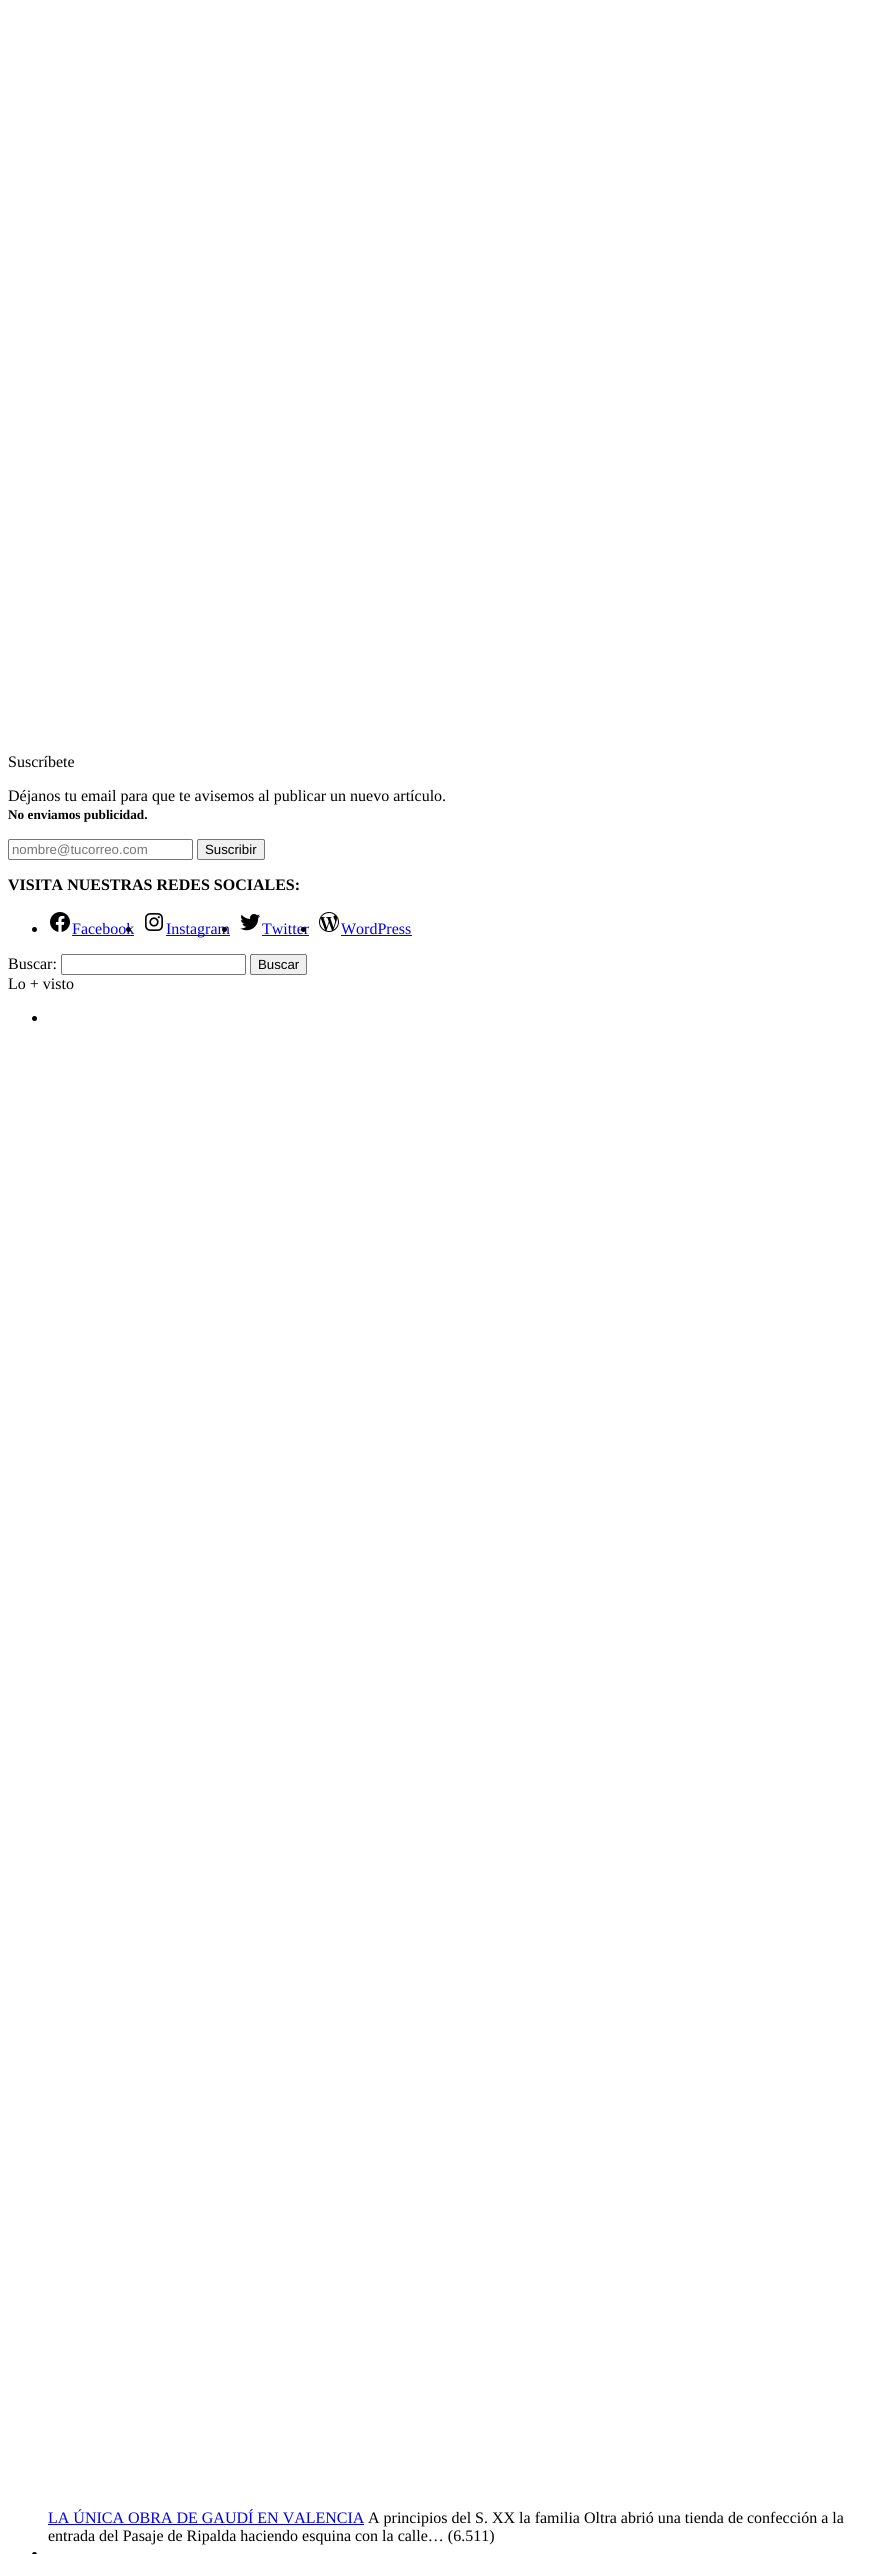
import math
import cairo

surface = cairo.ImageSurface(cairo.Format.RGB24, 886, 2554)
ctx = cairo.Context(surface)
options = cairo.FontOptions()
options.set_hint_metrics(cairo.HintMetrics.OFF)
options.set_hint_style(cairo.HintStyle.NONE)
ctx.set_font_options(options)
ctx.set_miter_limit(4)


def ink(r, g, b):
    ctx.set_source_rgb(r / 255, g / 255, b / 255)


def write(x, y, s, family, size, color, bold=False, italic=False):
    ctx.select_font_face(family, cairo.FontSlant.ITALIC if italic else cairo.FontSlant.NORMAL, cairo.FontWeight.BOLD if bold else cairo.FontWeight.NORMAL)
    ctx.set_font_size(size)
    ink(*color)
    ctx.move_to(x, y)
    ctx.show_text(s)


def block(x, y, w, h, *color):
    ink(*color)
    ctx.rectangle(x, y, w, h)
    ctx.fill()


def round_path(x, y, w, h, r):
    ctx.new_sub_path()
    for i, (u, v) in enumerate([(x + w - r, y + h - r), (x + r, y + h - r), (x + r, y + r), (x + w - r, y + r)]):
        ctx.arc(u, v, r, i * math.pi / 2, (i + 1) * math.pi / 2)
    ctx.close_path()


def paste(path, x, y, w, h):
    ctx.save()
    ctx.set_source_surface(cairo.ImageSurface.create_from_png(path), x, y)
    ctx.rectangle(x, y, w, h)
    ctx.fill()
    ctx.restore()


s1 = dict(family="Liberation Serif", size=16, color=(0, 0, 0))
s2 = dict(family="Liberation Serif", size=13.25, color=(0, 0, 0), bold=True)
s3 = dict(family="Liberation Sans", size=13.25, color=(117, 117, 117))
s4 = dict(family="Liberation Sans", size=13.25, color=(0, 0, 0))
s5 = dict(family="Liberation Serif", size=16, color=(0, 0, 0), bold=True)
s6 = dict(family="Liberation Serif", size=16, color=(0, 0, 238))

ink(255, 255, 255)
ctx.paint()
write(8, 767, "Suscríbete", **s1)
write(8, 801, "Déjanos tu email para que te avisemos al publicar un nuevo artículo.", **s1)
write(8, 819, "No enviamos publicidad.", **s2)
round_path(8.5, 839.5, 184, 20, 1.5)
ink(118, 118, 118)
ctx.set_line_width(1)
ctx.stroke()
write(12, 854, "nombre@tucorreo.com", **s3)
ink(239, 239, 239)
round_path(197.5, 839.5, 67, 20, 1.5)
ctx.fill_preserve()
ink(118, 118, 118)
ctx.stroke()
write(205, 854, "Suscribir", **s4)
write(8, 890, "VISITA NUESTRAS REDES SOCIALES:", **s5)
ctx.new_path()
ctx.arc(34.5, 929.5, 2.5, 0, 2 * math.pi)
ctx.fill()
paste("pic1.png", 50, 912, 20, 20)
write(72, 934, "Facebook", **s6)
block(72, 935, 62, 1, 0, 0, 238)
ink(0, 0, 0)
ctx.new_path()
ctx.arc(128.5, 929.5, 2.5, 0, 2 * math.pi)
ctx.fill()
paste("pic2.png", 145, 913, 18, 18)
block(166, 935, 64, 1, 0, 0, 238)
write(166, 934, "Instagram", **s6)
ink(0, 0, 0)
ctx.new_path()
ctx.arc(224.5, 929.5, 2.5, 0, 2 * math.pi)
ctx.fill()
paste("pic3.png", 240, 914, 20, 17)
write(262, 934, "Twitter", **s6)
block(262, 935, 47, 1, 0, 0, 238)
ink(0, 0, 0)
ctx.new_path()
ctx.arc(303.5, 929.5, 2.5, 0, 2 * math.pi)
ctx.fill()
paste("pic4.png", 319, 912, 20, 20)
write(341, 934, "WordPress", **s6)
block(341, 935, 71, 1, 0, 0, 238)
write(8, 969, "Buscar:", **s1)
round_path(61.5, 954.5, 184, 20, 1.5)
ink(118, 118, 118)
ctx.stroke()
ink(239, 239, 239)
round_path(250.5, 954.5, 56, 20, 1.5)
ctx.fill_preserve()
ink(118, 118, 118)
ctx.stroke()
write(258, 969, "Buscar", **s4)
write(8, 989, "Lo + visto", **s1)
ctx.new_path()
ctx.arc(34.5, 1018.5, 2.5, 0, 2 * math.pi)
ctx.fill()
write(48, 2523, "LA ÚNICA OBRA DE GAUDÍ EN VALENCIA", **s6)
write(368, 2523, "A principios del S. XX la familia Oltra abrió una tienda de confección a la", **s1)
block(48, 2524, 316, 1, 0, 0, 238)
write(48, 2541, "entrada del Pasaje de Ripalda haciendo esquina con la calle… (6.511)", **s1)
ctx.new_path()
ctx.arc(34.5, 2554.5, 2.5, 0, 2 * math.pi)
ctx.fill()
surface.write_to_png("screenshot.png")
